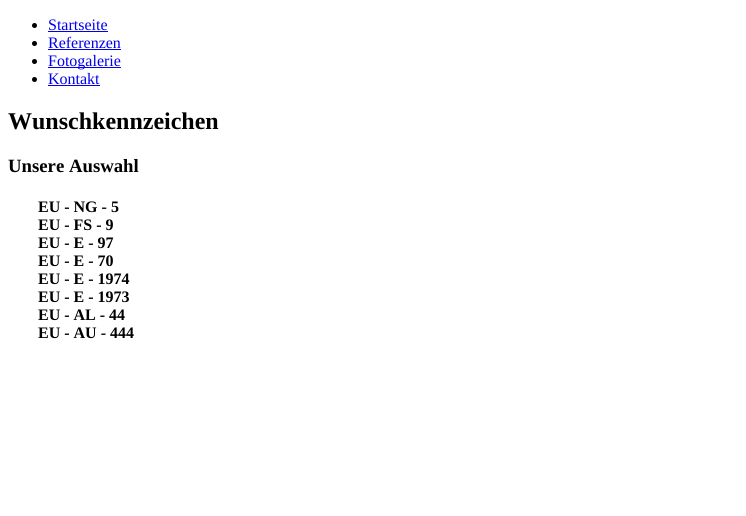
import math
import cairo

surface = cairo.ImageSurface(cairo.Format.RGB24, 746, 516)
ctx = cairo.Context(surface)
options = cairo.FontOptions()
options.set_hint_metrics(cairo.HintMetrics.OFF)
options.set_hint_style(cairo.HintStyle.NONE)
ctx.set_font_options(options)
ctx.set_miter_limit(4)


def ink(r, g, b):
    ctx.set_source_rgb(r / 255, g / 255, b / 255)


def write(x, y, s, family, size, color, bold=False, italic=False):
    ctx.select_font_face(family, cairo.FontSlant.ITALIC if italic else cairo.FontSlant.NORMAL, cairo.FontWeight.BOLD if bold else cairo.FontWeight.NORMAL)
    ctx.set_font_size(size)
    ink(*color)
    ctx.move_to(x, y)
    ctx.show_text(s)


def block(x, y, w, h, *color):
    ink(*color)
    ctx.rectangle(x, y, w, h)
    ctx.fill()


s1 = dict(family="Liberation Serif", size=16, color=(0, 0, 238))
s2 = dict(family="Liberation Serif", size=24, color=(0, 0, 0), bold=True)
s3 = dict(family="Liberation Serif", size=18.75, color=(0, 0, 0), bold=True)
s4 = dict(family="Liberation Serif", size=16, color=(0, 0, 0), bold=True)

ink(255, 255, 255)
ctx.paint()
ink(0, 0, 0)
ctx.arc(34.5, 25.5, 2.5, 0, 2 * math.pi)
ctx.fill()
write(48, 30, "Startseite", **s1)
block(48, 31, 60, 1, 0, 0, 238)
ink(0, 0, 0)
ctx.new_path()
ctx.arc(34.5, 43.5, 2.5, 0, 2 * math.pi)
ctx.fill()
write(48, 48, "Referenzen", **s1)
block(48, 49, 73, 1, 0, 0, 238)
ink(0, 0, 0)
ctx.new_path()
ctx.arc(34.5, 61.5, 2.5, 0, 2 * math.pi)
ctx.fill()
block(48, 67, 73, 1, 0, 0, 238)
write(48, 66, "Fotogalerie", **s1)
ink(0, 0, 0)
ctx.new_path()
ctx.arc(34.5, 79.5, 2.5, 0, 2 * math.pi)
ctx.fill()
write(48, 84, "Kontakt", **s1)
block(48, 85, 52, 1, 0, 0, 238)
write(8, 129, "Wunschkennzeichen", **s2)
write(8, 172, "Unsere Auswahl", **s3)
write(38, 212, "EU - NG - 5", **s4)
write(38, 230, "EU - FS - 9", **s4)
write(38, 248, "EU - E - 97", **s4)
write(38, 266, "EU - E - 70", **s4)
write(38, 284, "EU - E - 1974", **s4)
write(38, 302, "EU - E - 1973", **s4)
write(38, 320, "EU - AL - 44", **s4)
write(38, 338, "EU - AU - 444", **s4)
surface.write_to_png("screenshot.png")
